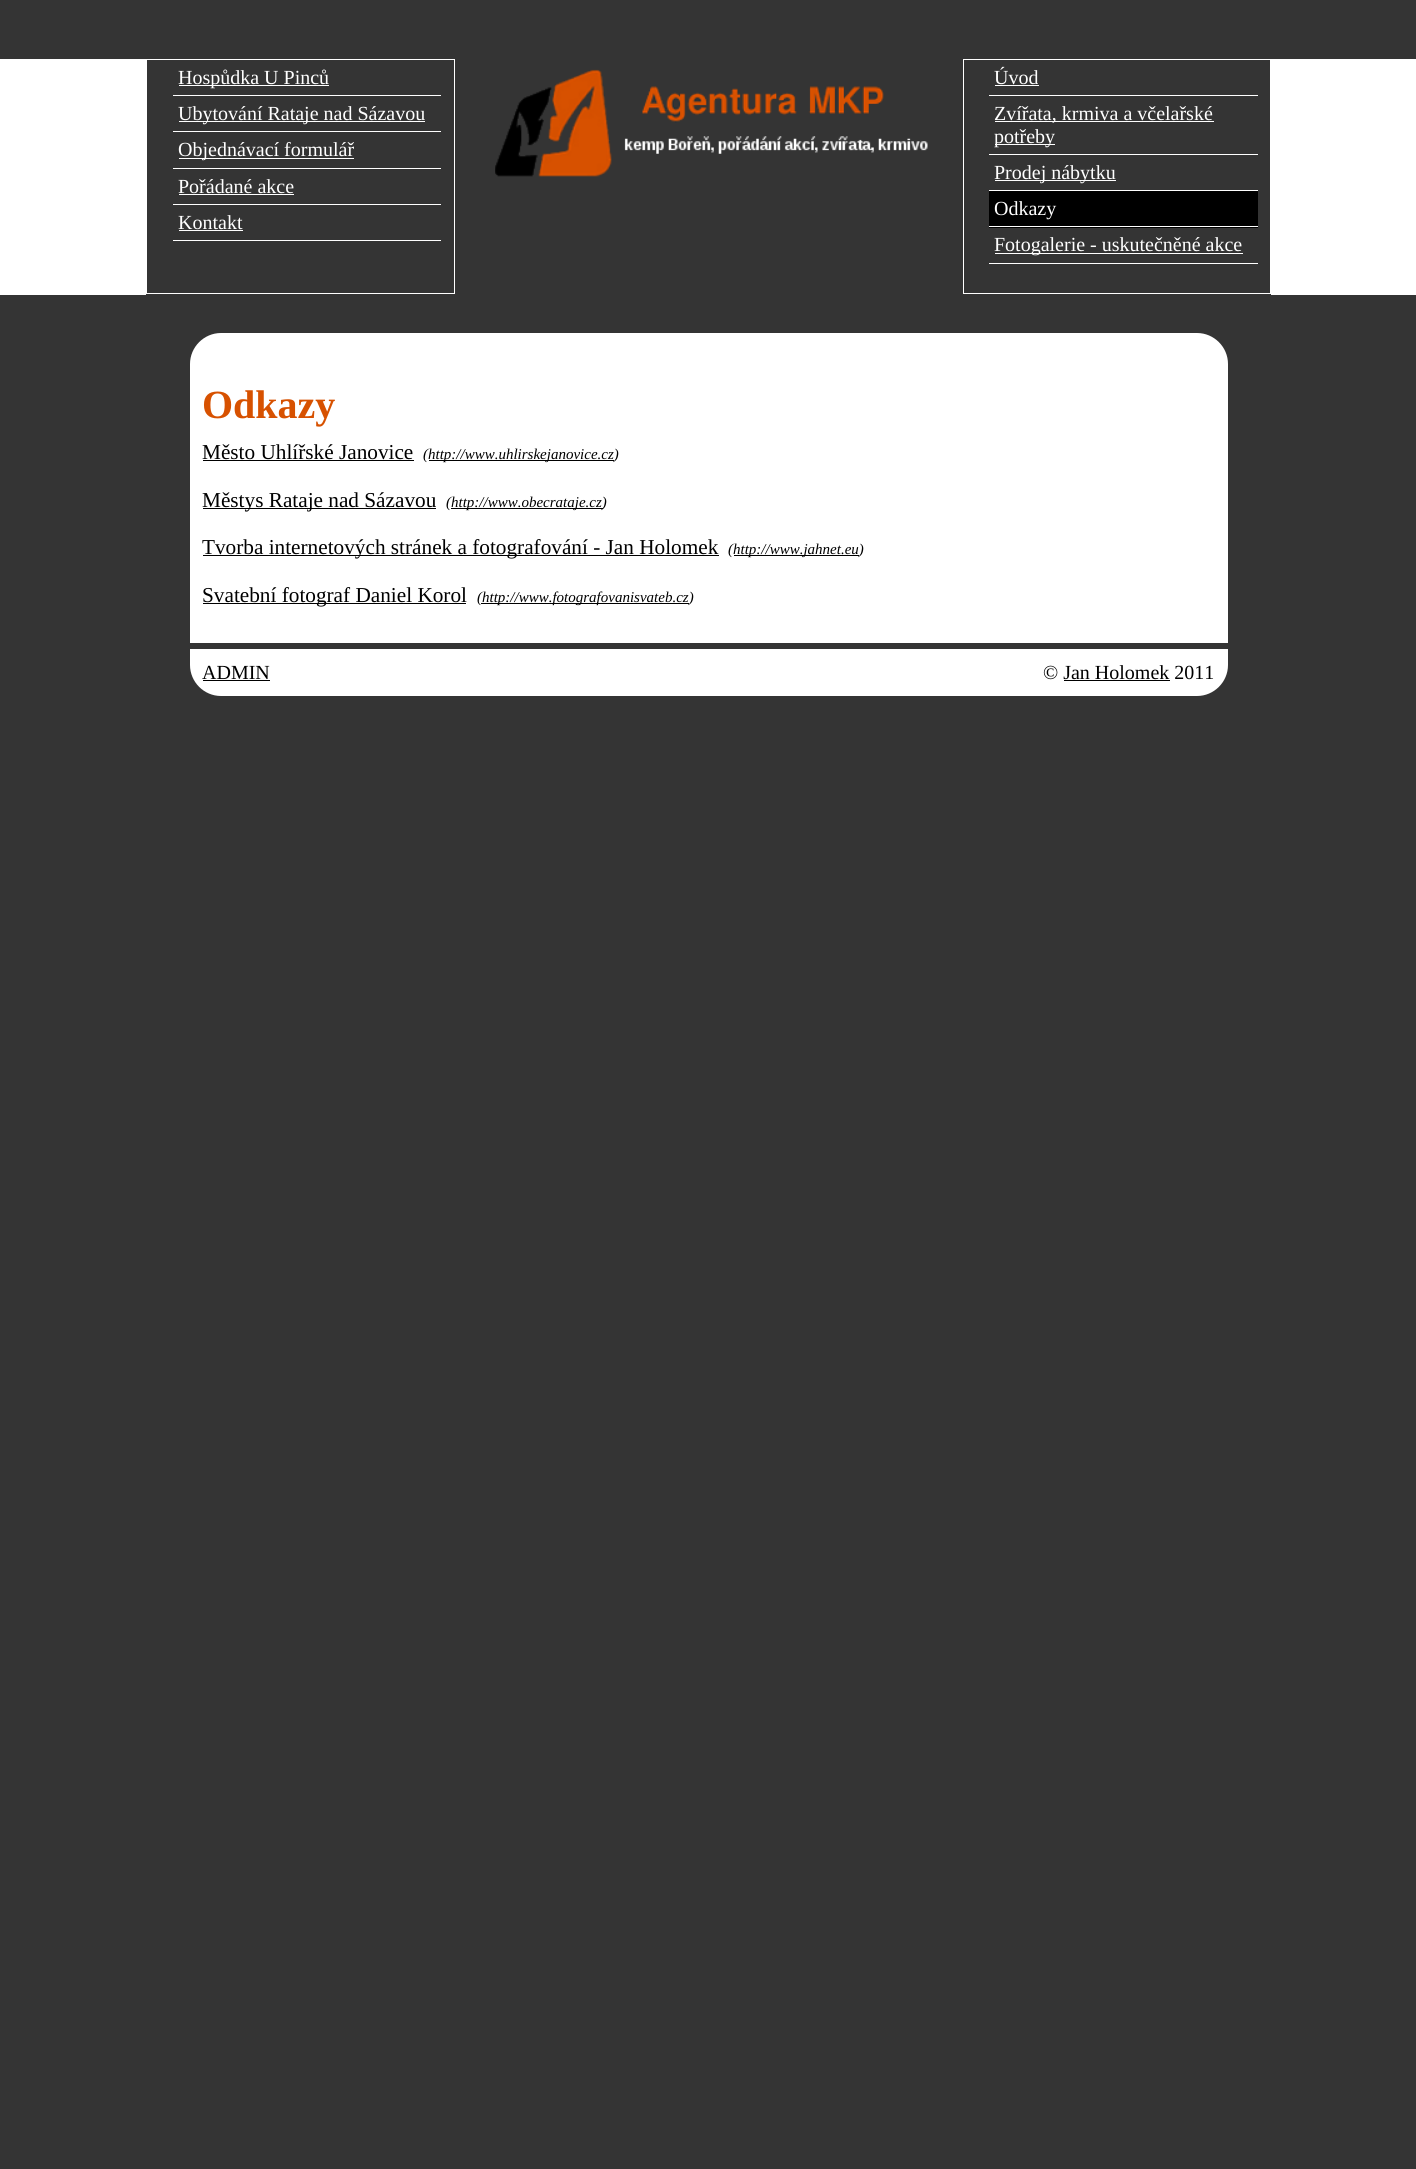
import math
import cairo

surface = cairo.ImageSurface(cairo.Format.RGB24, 1416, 2169)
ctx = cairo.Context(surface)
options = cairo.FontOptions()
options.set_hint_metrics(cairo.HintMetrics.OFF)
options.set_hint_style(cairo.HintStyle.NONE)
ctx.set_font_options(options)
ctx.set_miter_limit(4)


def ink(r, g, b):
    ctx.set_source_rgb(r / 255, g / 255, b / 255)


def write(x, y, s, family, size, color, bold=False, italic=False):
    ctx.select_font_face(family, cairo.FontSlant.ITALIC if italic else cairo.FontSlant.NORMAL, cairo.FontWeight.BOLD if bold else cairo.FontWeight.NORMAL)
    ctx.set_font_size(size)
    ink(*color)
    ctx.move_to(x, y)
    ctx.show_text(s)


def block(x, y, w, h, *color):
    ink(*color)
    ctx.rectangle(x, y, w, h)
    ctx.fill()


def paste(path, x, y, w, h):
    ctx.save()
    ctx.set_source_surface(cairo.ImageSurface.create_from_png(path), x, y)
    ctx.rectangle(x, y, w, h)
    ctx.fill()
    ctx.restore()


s1 = dict(family="Liberation Serif", size=20, color=(255, 255, 255))
s2 = dict(family="Liberation Serif", size=40, color=(215, 81, 0), bold=True)
s3 = dict(family="Liberation Serif", size=21.25, color=(0, 0, 0))
s4 = dict(family="Liberation Serif", size=15, color=(0, 0, 0), italic=True)
s5 = dict(family="Liberation Serif", size=20, color=(0, 0, 0))

ink(52, 52, 52)
ctx.paint()
block(0, 59, 1416, 236, 255, 255, 255)
block(146, 59, 1125, 236, 52, 52, 52)
ctx.rectangle(146.5, 59.5, 308, 234)
ink(255, 255, 255)
ctx.set_line_width(1)
ctx.stroke()
block(173, 95, 268, 1, 255, 255, 255)
block(179, 85, 150, 1, 255, 255, 255)
write(178, 84, "Hospůdka U Pinců", **s1)
block(173, 131, 268, 1, 255, 255, 255)
block(179, 121, 246, 1, 255, 255, 255)
write(178, 120, "Ubytování Rataje nad Sázavou", **s1)
block(173, 168, 268, 1, 255, 255, 255)
block(179, 158, 175, 1, 255, 255, 255)
write(178, 156, "Objednávací formulář", **s1)
block(173, 204, 268, 1, 255, 255, 255)
write(178, 193, "Pořádané akce", **s1)
block(179, 194, 115, 1, 255, 255, 255)
block(173, 240, 268, 1, 255, 255, 255)
write(178, 229, "Kontakt", **s1)
block(179, 230, 64, 1, 255, 255, 255)
paste("pic1.png", 495, 69, 433, 108)
ctx.rectangle(963.5, 59.5, 307, 234)
ctx.stroke()
block(989, 95, 269, 1, 255, 255, 255)
write(994, 84, "Úvod", **s1)
block(995, 85, 44, 1, 255, 255, 255)
block(989, 154, 269, 1, 255, 255, 255)
block(995, 121, 219, 1, 255, 255, 255)
write(994, 120, "Zvířata, krmiva a včelařské", **s1)
block(995, 144, 60, 1, 255, 255, 255)
write(994, 143, "potřeby", **s1)
block(989, 190, 269, 1, 255, 255, 255)
block(995, 180, 121, 1, 255, 255, 255)
write(994, 179, "Prodej nábytku", **s1)
block(989, 191, 269, 37, 0, 0, 0)
block(989, 226, 269, 1, 255, 255, 255)
write(994, 215, "Odkazy", **s1)
block(989, 263, 269, 1, 255, 255, 255)
block(995, 253, 248, 1, 255, 255, 255)
write(994, 251, "Fotogalerie - uskutečněné akce", **s1)
ctx.new_path()
ctx.move_to(221, 333)
ctx.line_to(1197, 333)
ctx.curve_to(1214, 333, 1228, 347, 1228, 364)
ctx.line_to(1228, 643)
ctx.line_to(190, 643)
ctx.line_to(190, 364)
ctx.curve_to(190, 347, 204, 333, 221, 333)
ctx.close_path()
ctx.fill()
write(202, 418, "Odkazy", **s2)
write(202, 459, "Město Uhlířské Janovice", **s3)
block(203, 460, 211, 1, 0, 0, 0)
write(423, 459, "(", **s4)
block(429, 460, 185, 1, 0, 0, 0)
write(428, 459, "http://www.uhlirskejanovice.cz)", **s4)
block(203, 508, 233, 1, 0, 0, 0)
write(202, 507, "Městys Rataje nad Sázavou", **s3)
write(446, 507, "(", **s4)
block(451, 508, 152, 1, 0, 0, 0)
write(451, 507, "http://www.obecrataje.cz)", **s4)
block(203, 555, 516, 1, 0, 0, 0)
write(202, 554, "Tvorba internetových stránek a fotografování - Jan Holomek", **s3)
write(728, 554, "(", **s4)
block(734, 555, 125, 1, 0, 0, 0)
write(733, 554, "http://www.jahnet.eu)", **s4)
block(203, 603, 263, 1, 0, 0, 0)
write(202, 602, "Svatební fotograf Daniel Korol", **s3)
write(477, 602, "(", **s4)
block(481, 603, 208, 1, 0, 0, 0)
write(482, 602, "http://www.fotografovanisvateb.cz)", **s4)
ink(255, 255, 255)
ctx.new_path()
ctx.move_to(190, 649)
ctx.line_to(1228, 649)
ctx.line_to(1228, 665)
ctx.curve_to(1228, 682, 1214, 696, 1197, 696)
ctx.line_to(221, 696)
ctx.curve_to(204, 696, 190, 682, 190, 665)
ctx.close_path()
ctx.fill()
write(202, 679, "ADMIN", **s5)
block(203, 680, 67, 1, 0, 0, 0)
write(1043, 679, "© Jan Holomek 2011", **s5)
block(1064, 680, 106, 1, 0, 0, 0)
surface.write_to_png("screenshot.png")
